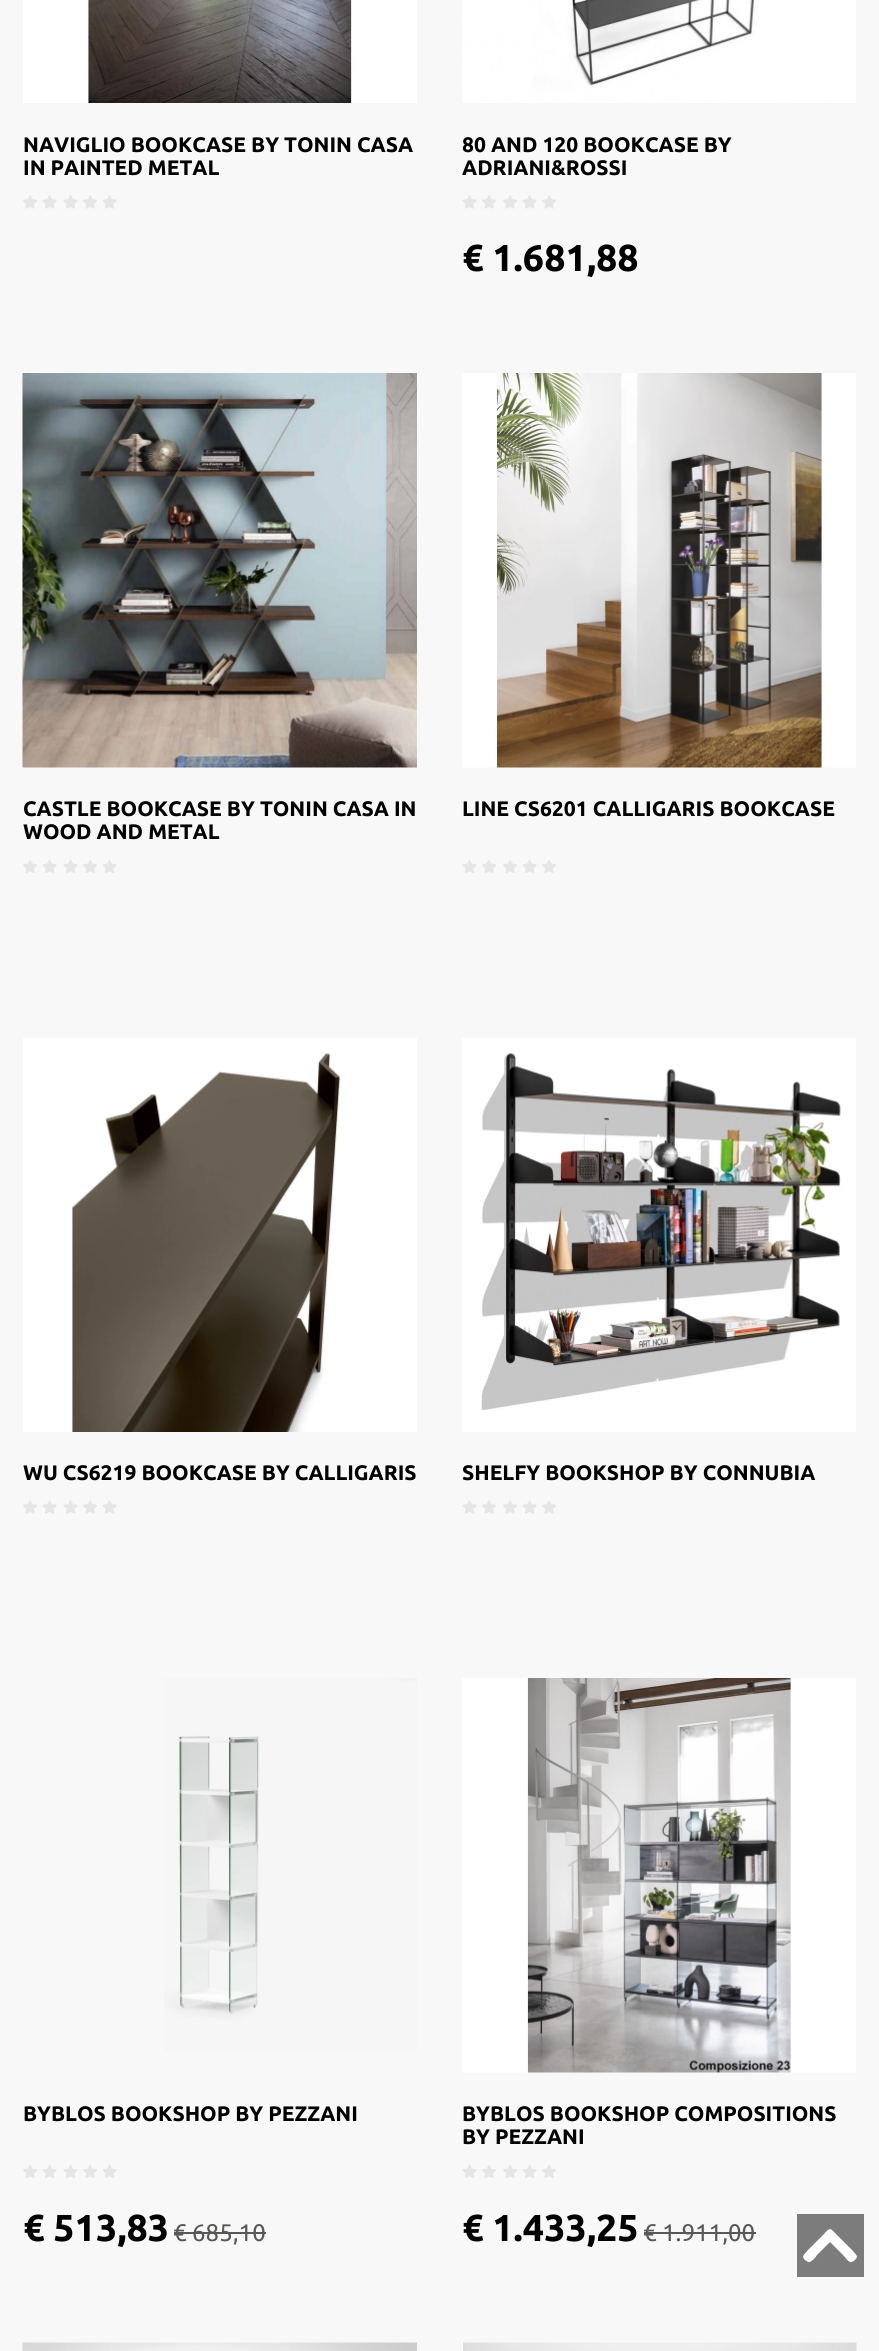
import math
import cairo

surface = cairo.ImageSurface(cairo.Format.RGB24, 879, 2351)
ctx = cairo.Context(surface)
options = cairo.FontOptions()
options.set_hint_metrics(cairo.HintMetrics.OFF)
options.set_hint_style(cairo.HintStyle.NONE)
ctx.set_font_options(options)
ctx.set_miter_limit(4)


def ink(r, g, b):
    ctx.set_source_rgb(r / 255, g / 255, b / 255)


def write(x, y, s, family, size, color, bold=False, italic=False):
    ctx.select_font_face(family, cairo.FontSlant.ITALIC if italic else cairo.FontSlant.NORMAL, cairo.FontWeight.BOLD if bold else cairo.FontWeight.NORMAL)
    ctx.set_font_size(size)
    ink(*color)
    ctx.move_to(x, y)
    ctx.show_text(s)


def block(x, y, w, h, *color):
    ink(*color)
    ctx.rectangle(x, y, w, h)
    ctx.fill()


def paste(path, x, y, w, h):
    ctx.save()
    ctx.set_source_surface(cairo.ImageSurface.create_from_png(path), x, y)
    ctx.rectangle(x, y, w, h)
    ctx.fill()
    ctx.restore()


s1 = dict(family="Ubuntu", size=21, color=(0, 0, 0), bold=True)
s2 = dict(family="Ubuntu", size=37.5, color=(0, 0, 0), bold=True)
s3 = dict(family="Ubuntu", size=24, color=(88, 88, 87))

ink(248, 248, 248)
ctx.paint()
paste("pic1.png", 23, 0, 394, 103)
write(23, 152, "NAVIGLIO BOOKCASE BY TONIN CASA", **s1)
write(23, 175, "IN PAINTED METAL", **s1)
paste("pic2.png", 23, 195, 14, 14)
paste("pic3.png", 42, 195, 15, 14)
paste("pic3.png", 63, 195, 15, 14)
paste("pic2.png", 83, 195, 14, 14)
paste("pic3.png", 102, 195, 15, 14)
paste("pic4.png", 462, 0, 394, 103)
write(462, 152, "80 AND 120 BOOKCASE BY", **s1)
write(462, 175, "ADRIANI&ROSSI", **s1)
paste("pic3.png", 462, 195, 15, 14)
paste("pic2.png", 482, 195, 14, 14)
paste("pic2.png", 503, 195, 14, 14)
paste("pic3.png", 522, 195, 15, 14)
paste("pic2.png", 542, 195, 14, 14)
write(462, 271, "€ 1.681,88", **s2)
paste("pic5.png", 22, 373, 395, 395)
write(23, 816, "CASTLE BOOKCASE BY TONIN CASA IN", **s1)
write(23, 839, "WOOD AND METAL", **s1)
paste("pic6.png", 23, 860, 14, 13)
paste("pic7.png", 42, 859, 15, 14)
paste("pic7.png", 63, 859, 15, 14)
paste("pic6.png", 83, 860, 14, 13)
paste("pic7.png", 102, 859, 15, 14)
paste("pic8.png", 462, 373, 394, 395)
write(462, 816, "LINE CS6201 CALLIGARIS BOOKCASE", **s1)
paste("pic7.png", 462, 859, 15, 14)
paste("pic6.png", 482, 860, 14, 13)
paste("pic6.png", 503, 860, 14, 13)
paste("pic7.png", 522, 859, 15, 14)
paste("pic6.png", 542, 860, 14, 13)
paste("pic9.png", 23, 1038, 394, 394)
write(23, 1480, "WU CS6219 BOOKCASE BY CALLIGARIS", **s1)
paste("pic2.png", 23, 1500, 14, 14)
paste("pic3.png", 42, 1500, 15, 14)
paste("pic3.png", 63, 1500, 15, 14)
paste("pic2.png", 83, 1500, 14, 14)
paste("pic3.png", 102, 1500, 15, 14)
paste("pic10.png", 462, 1038, 394, 394)
write(462, 1480, "SHELFY BOOKSHOP BY CONNUBIA", **s1)
paste("pic3.png", 462, 1500, 15, 14)
paste("pic2.png", 482, 1500, 14, 14)
paste("pic2.png", 503, 1500, 14, 14)
paste("pic3.png", 522, 1500, 15, 14)
paste("pic2.png", 542, 1500, 14, 14)
paste("pic11.png", 164, 1678, 253, 373)
write(23, 2121, "BYBLOS BOOKSHOP BY PEZZANI", **s1)
paste("pic6.png", 23, 2165, 14, 13)
paste("pic7.png", 42, 2164, 15, 14)
paste("pic7.png", 63, 2164, 15, 14)
paste("pic6.png", 83, 2165, 14, 13)
paste("pic7.png", 102, 2164, 15, 14)
write(23, 2241, "€ 513,83", **s2)
write(173, 2241, "€ 685,10", **s3)
block(174, 2232, 92, 2, 88, 88, 87)
paste("pic12.png", 462, 1678, 394, 395)
write(462, 2121, "BYBLOS BOOKSHOP COMPOSITIONS", **s1)
write(462, 2144, "BY PEZZANI", **s1)
paste("pic7.png", 462, 2164, 15, 14)
paste("pic6.png", 482, 2165, 14, 13)
paste("pic6.png", 503, 2165, 14, 13)
paste("pic7.png", 522, 2164, 15, 14)
paste("pic6.png", 542, 2165, 14, 13)
write(462, 2241, "€ 1.433,25", **s2)
write(643, 2241, "€ 1.911,00", **s3)
block(644, 2232, 112, 2, 88, 88, 87)
paste("pic13.png", 22, 2342, 395, 9)
paste("pic14.png", 462, 2342, 395, 9)
block(797, 2214, 67, 63, 124, 124, 124)
ink(255, 255, 255)
ctx.new_path()
ctx.move_to(832, 2230)
ctx.line_to(852, 2250)
ctx.curve_to(856, 2255, 859, 2256, 855, 2260)
ctx.curve_to(849, 2265, 848, 2260, 843, 2255)
ctx.line_to(830, 2242)
ctx.line_to(817, 2255)
ctx.curve_to(816, 2257, 811, 2263, 808, 2262)
ctx.line_to(805, 2260)
ctx.curve_to(801, 2256, 804, 2255, 808, 2250)
ctx.line_to(824, 2234)
ctx.curve_to(825, 2233, 829, 2227, 832, 2230)
ctx.close_path()
ctx.fill()
surface.write_to_png("screenshot.png")
